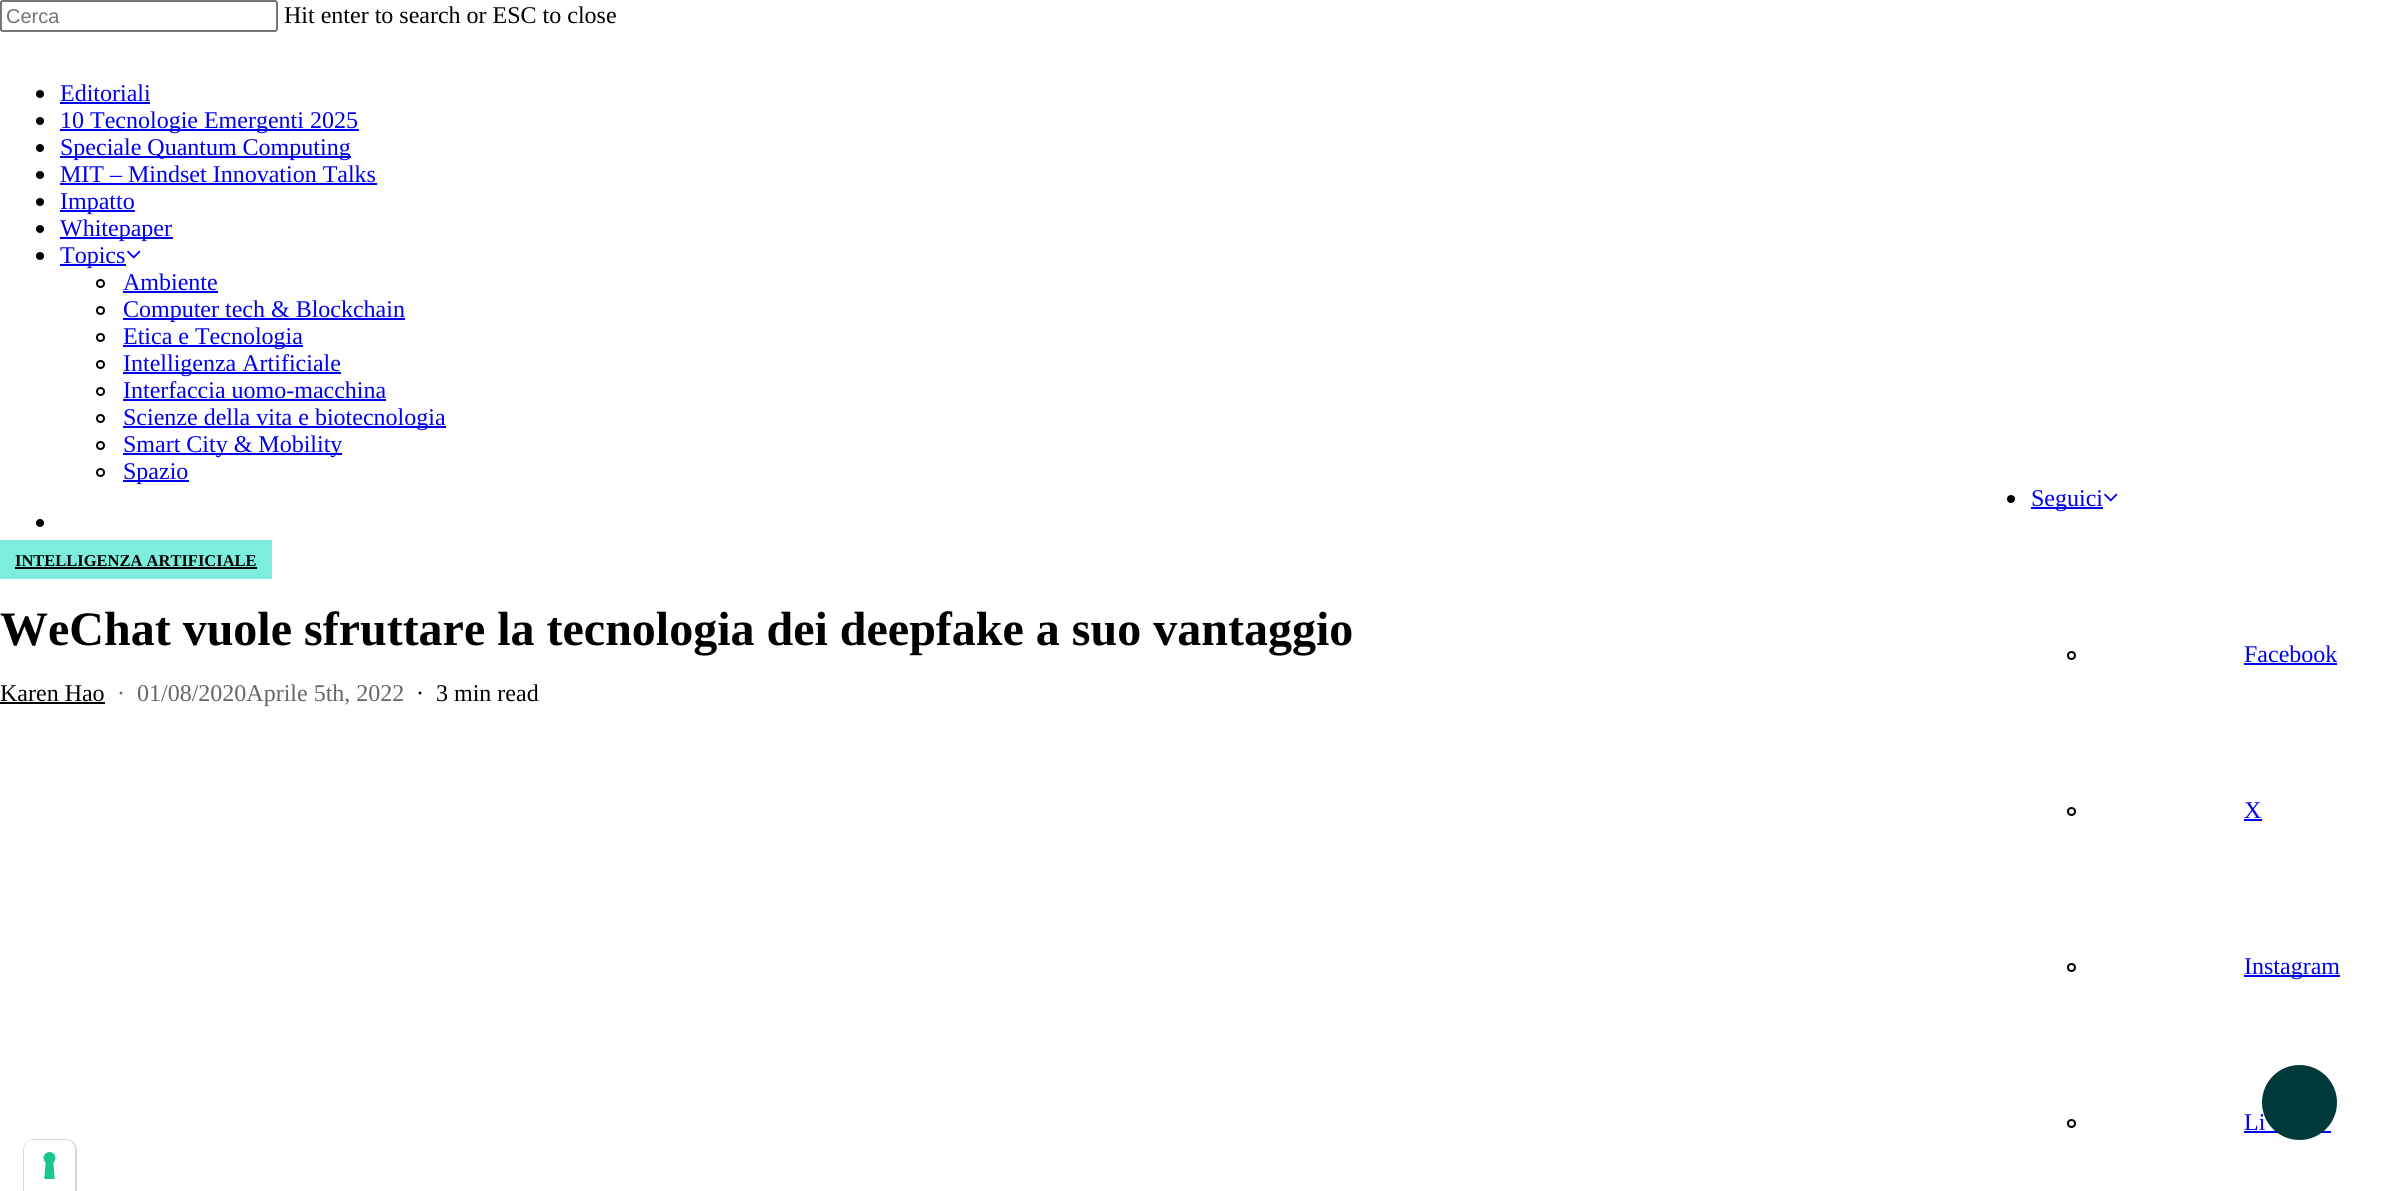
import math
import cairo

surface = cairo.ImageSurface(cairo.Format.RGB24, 2387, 1191)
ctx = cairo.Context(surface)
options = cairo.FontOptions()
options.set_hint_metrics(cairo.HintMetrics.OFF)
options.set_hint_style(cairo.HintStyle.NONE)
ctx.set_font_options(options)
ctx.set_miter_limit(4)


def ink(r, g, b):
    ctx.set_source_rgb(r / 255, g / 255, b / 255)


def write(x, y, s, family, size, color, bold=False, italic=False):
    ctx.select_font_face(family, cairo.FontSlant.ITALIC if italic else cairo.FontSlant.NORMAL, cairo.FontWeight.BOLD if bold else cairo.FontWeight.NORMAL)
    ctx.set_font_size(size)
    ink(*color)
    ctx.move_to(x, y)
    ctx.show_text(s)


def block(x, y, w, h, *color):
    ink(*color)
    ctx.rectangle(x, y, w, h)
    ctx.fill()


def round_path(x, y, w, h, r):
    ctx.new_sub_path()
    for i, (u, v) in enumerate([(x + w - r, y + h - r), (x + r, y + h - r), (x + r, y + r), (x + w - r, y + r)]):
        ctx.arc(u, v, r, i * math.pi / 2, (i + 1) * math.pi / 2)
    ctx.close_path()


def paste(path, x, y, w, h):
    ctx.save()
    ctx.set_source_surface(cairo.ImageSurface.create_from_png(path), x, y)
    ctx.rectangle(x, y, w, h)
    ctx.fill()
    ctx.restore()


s1 = dict(family="Liberation Sans", size=20, color=(117, 117, 117))
s2 = dict(family="Liberation Serif", size=24, color=(0, 0, 0))
s3 = dict(family="Liberation Serif", size=24, color=(0, 0, 238))
s4 = dict(family="Liberation Serif", size=16.5, color=(0, 0, 0), bold=True)
s5 = dict(family="Liberation Serif", size=48, color=(0, 0, 0), bold=True)
s6 = dict(family="Liberation Serif", size=24, color=(102, 102, 102))

ink(255, 255, 255)
ctx.paint()
round_path(1, 1, 276, 30, 2)
ink(118, 118, 118)
ctx.stroke()
write(6, 23, "Cerca", **s1)
write(284, 23, "Hit enter to search or ESC to close", **s2)
ctx.new_path()
ctx.arc(40, 523, 4, 0, 2 * math.pi)
ctx.fill()
ctx.arc(40, 94, 4, 0, 2 * math.pi)
ctx.fill()
write(60, 101, "Editoriali", **s3)
block(60, 102, 90, 2, 0, 0, 238)
ink(0, 0, 0)
ctx.new_path()
ctx.arc(40, 121, 4, 0, 2 * math.pi)
ctx.fill()
block(60, 129, 299, 2, 0, 0, 238)
write(60, 128, "10 Tecnologie Emergenti 2025", **s3)
ink(0, 0, 0)
ctx.new_path()
ctx.arc(40, 148, 4, 0, 2 * math.pi)
ctx.fill()
block(60, 156, 291, 2, 0, 0, 238)
write(60, 155, "Speciale Quantum Computing", **s3)
ink(0, 0, 0)
ctx.new_path()
ctx.arc(40, 175, 4, 0, 2 * math.pi)
ctx.fill()
write(60, 182, "MIT – Mindset Innovation Talks", **s3)
block(60, 183, 317, 2, 0, 0, 238)
ink(0, 0, 0)
ctx.new_path()
ctx.arc(40, 202, 4, 0, 2 * math.pi)
ctx.fill()
block(60, 210, 75, 2, 0, 0, 238)
write(60, 209, "Impatto", **s3)
ink(0, 0, 0)
ctx.new_path()
ctx.arc(40, 229, 4, 0, 2 * math.pi)
ctx.fill()
block(60, 237, 113, 2, 0, 0, 238)
write(60, 236, "Whitepaper", **s3)
ink(0, 0, 0)
ctx.new_path()
ctx.arc(40, 256, 4, 0, 2 * math.pi)
ctx.fill()
block(60, 264, 66, 2, 0, 0, 238)
write(60, 263, "Topics", **s3)
paste("pic1.png", 127, 250, 14, 9)
ctx.arc(100.5, 283.5, 3.5, 0, 2 * math.pi)
ink(0, 0, 0)
ctx.stroke()
write(123, 290, "Ambiente", **s3)
block(123, 291, 95, 2, 0, 0, 238)
ctx.new_path()
ctx.arc(100.5, 310.5, 3.5, 0, 2 * math.pi)
ink(0, 0, 0)
ctx.stroke()
block(123, 318, 282, 2, 0, 0, 238)
write(123, 317, "Computer tech & Blockchain", **s3)
ctx.new_path()
ctx.arc(100.5, 337.5, 3.5, 0, 2 * math.pi)
ink(0, 0, 0)
ctx.stroke()
block(123, 345, 180, 2, 0, 0, 238)
write(123, 344, "Etica e Tecnologia", **s3)
ctx.new_path()
ctx.arc(100.5, 364.5, 3.5, 0, 2 * math.pi)
ink(0, 0, 0)
ctx.stroke()
block(123, 372, 218, 2, 0, 0, 238)
write(123, 371, "Intelligenza Artificiale", **s3)
ctx.new_path()
ctx.arc(100.5, 391.5, 3.5, 0, 2 * math.pi)
ink(0, 0, 0)
ctx.stroke()
write(123, 398, "Interfaccia uomo-macchina", **s3)
block(123, 399, 263, 2, 0, 0, 238)
ctx.new_path()
ctx.arc(100.5, 418.5, 3.5, 0, 2 * math.pi)
ink(0, 0, 0)
ctx.stroke()
block(123, 426, 323, 2, 0, 0, 238)
write(123, 425, "Scienze della vita e biotecnologia", **s3)
ctx.new_path()
ctx.arc(100.5, 445.5, 3.5, 0, 2 * math.pi)
ink(0, 0, 0)
ctx.stroke()
block(123, 453, 219, 2, 0, 0, 238)
write(123, 452, "Smart City & Mobility", **s3)
ctx.new_path()
ctx.arc(100.5, 472.5, 3.5, 0, 2 * math.pi)
ink(0, 0, 0)
ctx.stroke()
block(123, 480, 66, 2, 0, 0, 238)
write(123, 479, "Spazio", **s3)
ink(0, 0, 0)
ctx.new_path()
ctx.arc(2011, 499, 4, 0, 2 * math.pi)
ctx.fill()
block(2031, 507, 72, 2, 0, 0, 238)
write(2031, 506, "Seguici", **s3)
paste("pic1.png", 2104, 493, 14, 9)
ctx.arc(2071.5, 655.5, 3.5, 0, 2 * math.pi)
ink(0, 0, 0)
ctx.stroke()
write(2244, 662, "Facebook", **s3)
block(2244, 663, 93, 2, 0, 0, 238)
ctx.new_path()
ctx.arc(2071.5, 811.5, 3.5, 0, 2 * math.pi)
ink(0, 0, 0)
ctx.stroke()
write(2244, 818, "X", **s3)
block(2244, 819, 18, 2, 0, 0, 238)
ctx.new_path()
ctx.arc(2071.5, 967.5, 3.5, 0, 2 * math.pi)
ink(0, 0, 0)
ctx.stroke()
block(2244, 975, 96, 2, 0, 0, 238)
write(2244, 974, "Instagram", **s3)
ctx.new_path()
ctx.arc(2071.5, 1123.5, 3.5, 0, 2 * math.pi)
ink(0, 0, 0)
ctx.stroke()
write(2244, 1130, "Li", **s3)
block(2244, 1131, 87, 2, 0, 0, 238)
block(0, 540, 272, 39, 125, 238, 221)
write(15, 566, "INTELLIGENZA ARTIFICIALE", **s4)
block(15, 567, 242, 2, 0, 0, 0)
write(0, 645, "WeChat vuole sfruttare la tecnologia dei deepfake a suo vantaggio", **s5)
write(0, 701, "Karen Hao", **s2)
block(0, 702, 105, 2, 0, 0, 0)
write(117, 701, "·", **s6)
write(137, 701, "01/08/2020Aprile 5th, 2022", **s6)
write(416, 701, "·", **s2)
write(436, 701, "3 min read", **s2)
ink(0, 57, 58)
ctx.new_path()
ctx.arc(2299.5, 1102.5, 37.5, 0, 2 * math.pi)
ctx.fill()
ctx.new_path()
ctx.move_to(34, 1140)
ctx.line_to(66, 1140)
ctx.curve_to(71.5, 1140, 76, 1144.5, 76, 1150)
ctx.line_to(76, 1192)
ctx.line_to(24, 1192)
ctx.line_to(24, 1150)
ctx.curve_to(24, 1144.5, 28.5, 1140, 34, 1140)
ctx.close_path()
ink(217, 217, 217)
ctx.stroke()
ink(255, 255, 255)
ctx.new_path()
ctx.move_to(33, 1140)
ctx.line_to(66, 1140)
ctx.curve_to(71, 1140, 75, 1144, 75, 1149)
ctx.line_to(75, 1191)
ctx.line_to(24, 1191)
ctx.line_to(24, 1149)
ctx.curve_to(24, 1144, 28, 1140, 33, 1140)
ctx.close_path()
ctx.fill()
paste("pic2.png", 43, 1152, 13, 27)
surface.write_to_png("screenshot.png")
